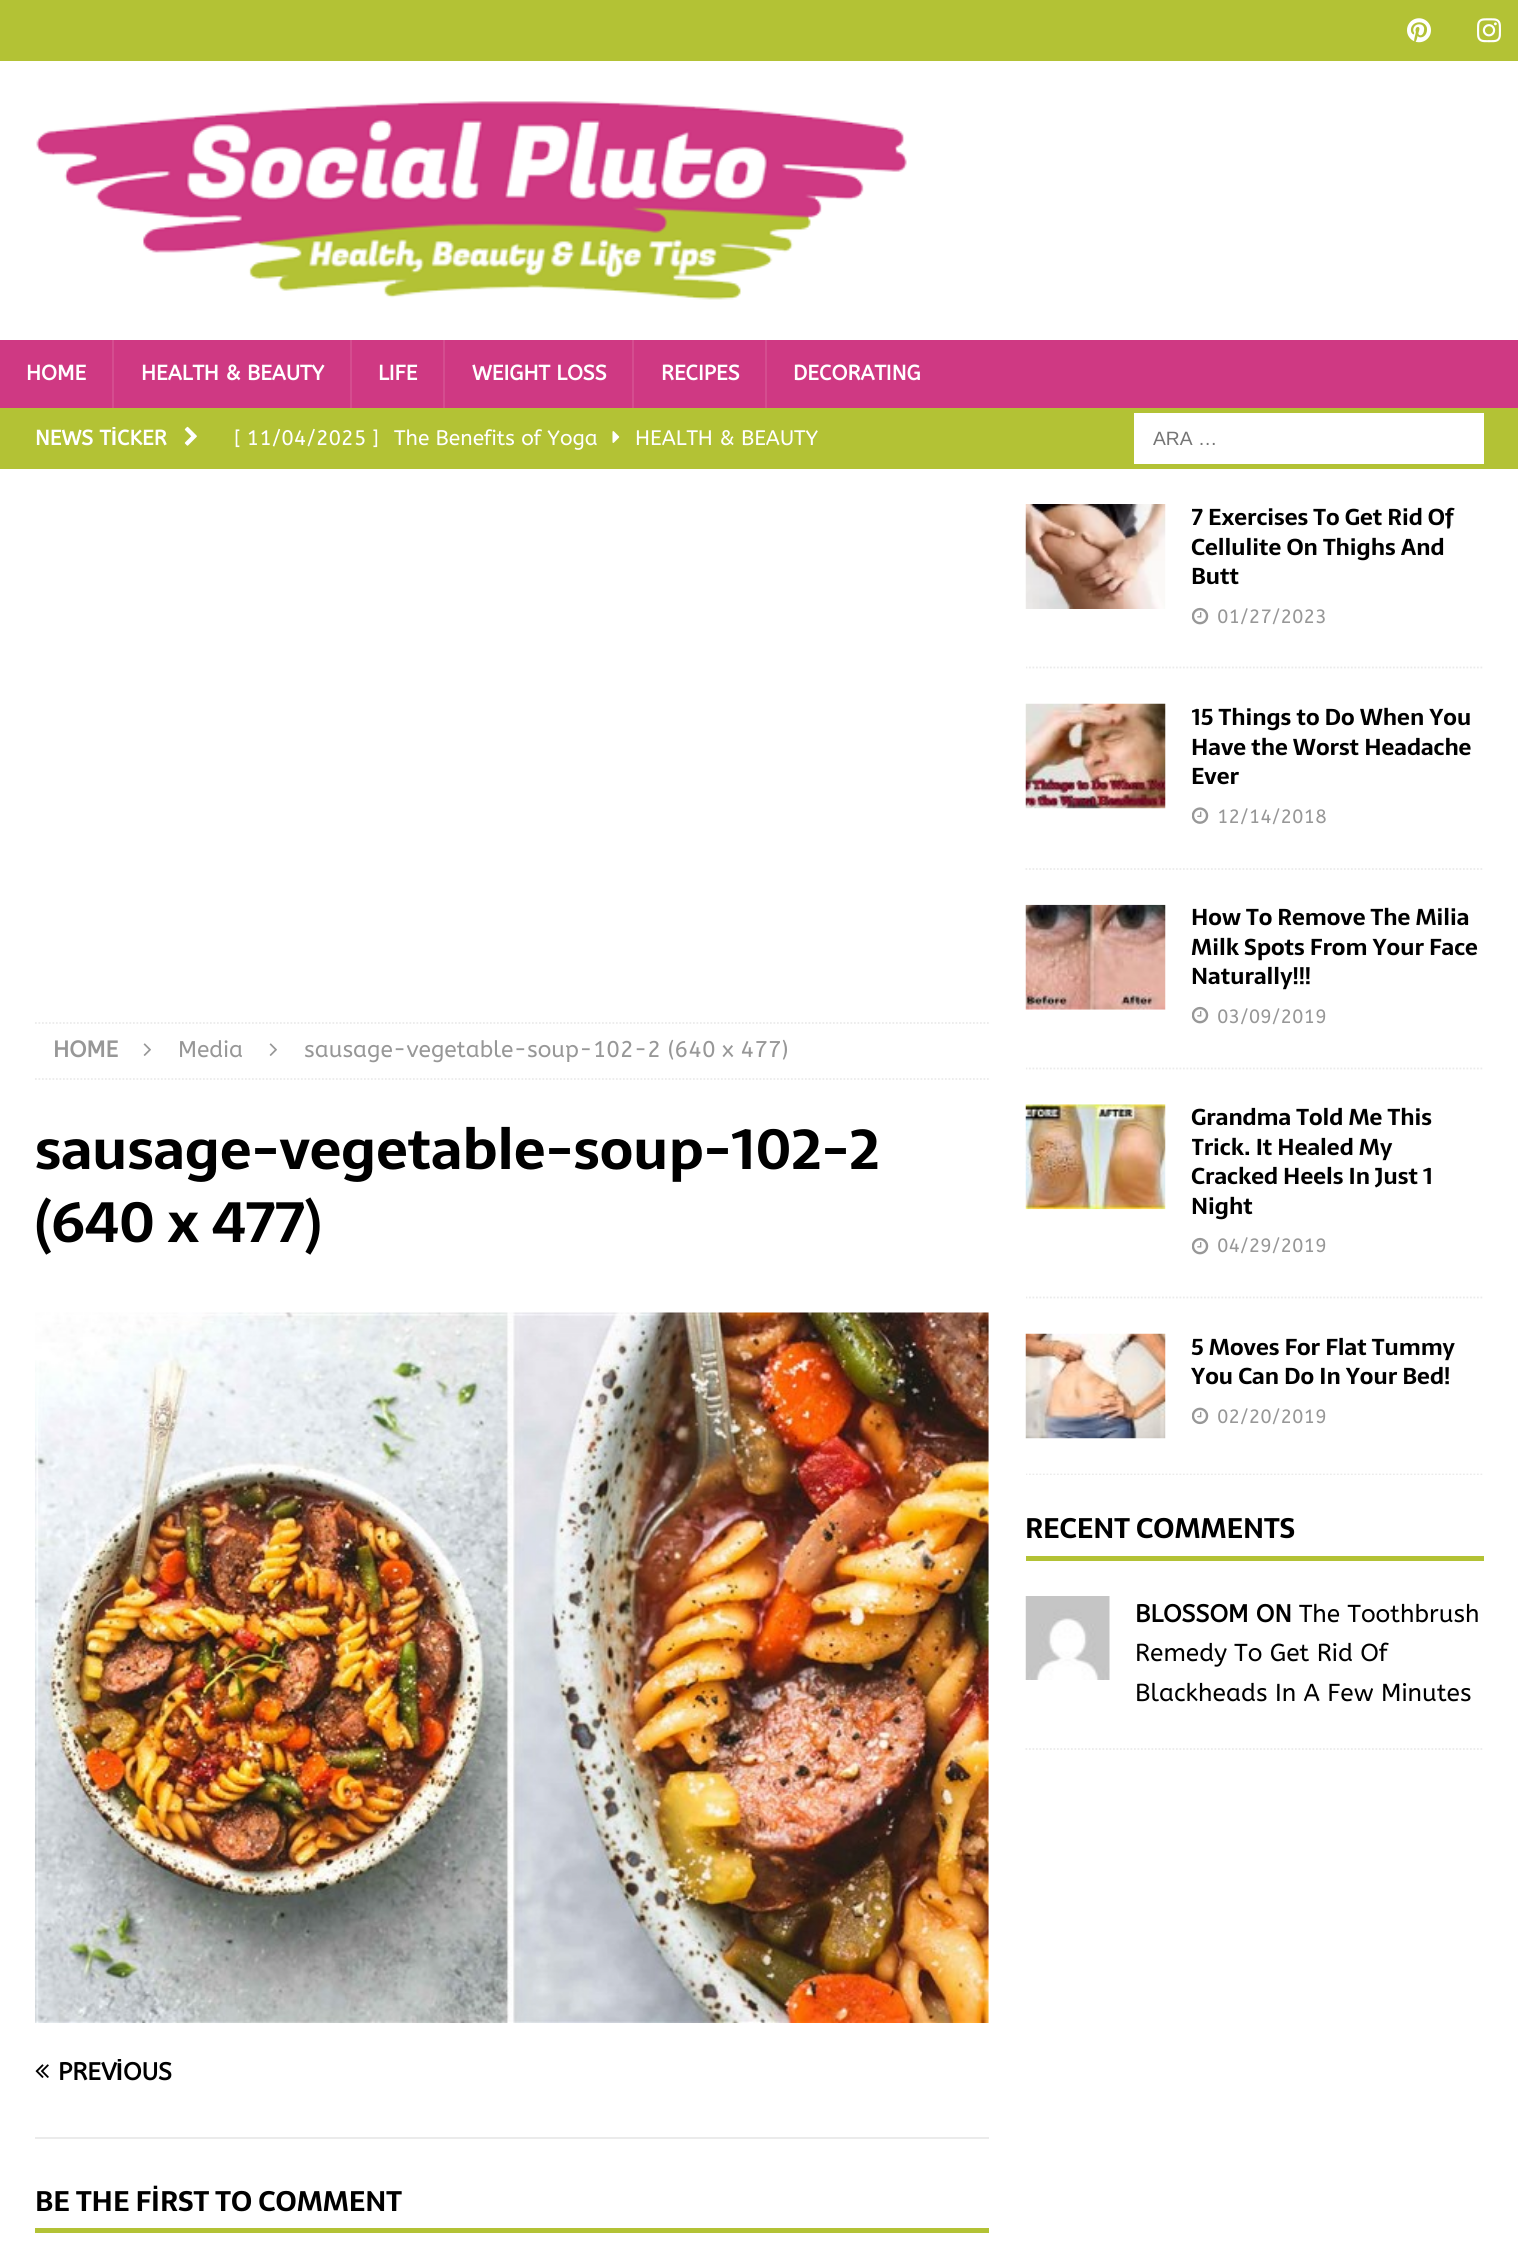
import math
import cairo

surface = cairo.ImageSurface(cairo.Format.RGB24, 1518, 2266)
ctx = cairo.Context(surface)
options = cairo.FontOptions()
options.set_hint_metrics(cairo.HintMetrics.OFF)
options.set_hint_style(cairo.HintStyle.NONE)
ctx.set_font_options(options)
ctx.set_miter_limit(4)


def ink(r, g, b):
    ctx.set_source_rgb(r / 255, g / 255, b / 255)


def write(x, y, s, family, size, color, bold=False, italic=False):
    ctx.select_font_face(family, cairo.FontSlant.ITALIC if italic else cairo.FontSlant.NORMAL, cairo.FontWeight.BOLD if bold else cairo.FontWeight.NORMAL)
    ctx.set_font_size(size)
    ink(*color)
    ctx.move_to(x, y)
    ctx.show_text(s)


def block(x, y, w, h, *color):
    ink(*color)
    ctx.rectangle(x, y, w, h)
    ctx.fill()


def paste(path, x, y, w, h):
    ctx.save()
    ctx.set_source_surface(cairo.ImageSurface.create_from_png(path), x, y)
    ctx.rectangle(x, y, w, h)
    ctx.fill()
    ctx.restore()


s1 = dict(family="ABeeZee", size=21, color=(255, 255, 255), bold=True)
s2 = dict(family="Liberation Sans", size=21, color=(255, 255, 255), bold=True)
s3 = dict(family="ABeeZee", size=21, color=(255, 255, 255))
s4 = dict(family="Liberation Sans", size=19.25, color=(117, 117, 117))
s5 = dict(family="ABeeZee", size=22.75, color=(151, 151, 151), bold=True)
s6 = dict(family="ABeeZee", size=22.75, color=(151, 151, 151))
s7 = dict(family="Sarala", size=56, color=(0, 0, 0), bold=True)
s8 = dict(family="ABeeZee", size=24.5, color=(0, 0, 0), bold=True)
s9 = dict(family="Liberation Sans", size=24.5, color=(0, 0, 0), bold=True)
s10 = dict(family="Sarala", size=28, color=(0, 0, 0), bold=True)
s11 = dict(family="Sarala", size=22.75, color=(0, 0, 0), bold=True)
s12 = dict(family="ABeeZee", size=19.25, color=(151, 151, 151))
s13 = dict(family="ABeeZee", size=24.5, color=(0, 0, 0))

ink(179, 194, 53)
ctx.paint()
paste("pic1.png", 1407, 18, 24, 25)
paste("pic2.png", 1477, 18, 24, 25)
block(0, 61, 1518, 279, 255, 255, 255)
paste("pic3.png", 36, 101, 871, 199)
block(0, 340, 1518, 68, 207, 57, 131)
write(26, 380, "HOME", **s1)
block(112, 340, 2, 68, 212, 77, 143)
write(141, 380, "HEALTH & BEAUTY", **s1)
block(350, 340, 2, 68, 212, 77, 143)
write(378, 380, "LIFE", **s1)
block(443, 340, 2, 68, 212, 77, 143)
write(472, 380, "WEIGHT LOSS", **s1)
block(632, 340, 2, 68, 212, 77, 143)
write(661, 380, "RECIPES", **s1)
block(765, 340, 2, 68, 212, 77, 143)
write(793, 380, "DECORATING", **s1)
write(35, 445, "NEWS T", **s1)
write(111, 445, "İ", **s2)
write(117, 445, "CKER", **s1)
paste("pic4.png", 184, 426, 13, 20)
write(234, 445, "[ 11/04/2025 ]", **s3)
write(394, 445, "The Benefits of Yoga", **s3)
paste("pic5.png", 612, 431, 8, 12)
write(635, 445, "HEALTH & BEAUTY", **s3)
block(1134, 413, 350, 51, 255, 255, 255)
write(1153, 445, "ARA …", **s4)
block(0, 469, 1518, 1797, 255, 255, 255)
ctx.new_path()
ctx.move_to(35, 1023)
ctx.line_to(989, 1023)
ink(235, 235, 235)
ctx.set_line_width(1.8)
ctx.set_dash([1.75, 1.75])
ctx.stroke()
ctx.new_path()
ctx.move_to(35, 1079)
ctx.line_to(989, 1079)
ctx.stroke()
write(53, 1057, "HOME", **s5)
paste("pic6.png", 143, 1043, 8, 13)
write(178, 1057, "Media", **s6)
paste("pic6.png", 269, 1043, 8, 13)
write(304, 1057, "sausage-vegetable-soup-102-2 (640 x 477)", **s6)
write(35, 1169, "sausage-vegetable-soup-102-2", **s7)
write(35, 1242, "(640 x 477)", **s7)
paste("pic7.png", 35, 1312, 954, 711)
block(35, 2137, 954, 2, 235, 235, 235)
paste("pic8.png", 35, 2064, 14, 14)
write(58, 2080, "PREV", **s8)
write(116, 2080, "İ", **s9)
write(123, 2080, "OUS", **s8)
block(35, 2228, 954, 5, 179, 194, 53)
write(35, 2211, "BE THE FİRST TO COMMENT", **s10)
ctx.save()
ctx.rectangle(1026, 504, 458, 971)
ctx.clip()
ctx.new_path()
ctx.move_to(1025.5, 667.5)
ctx.line_to(1484, 667.5)
ink(235, 235, 235)
ctx.stroke()
ctx.restore()
paste("pic9.png", 1025, 504, 141, 105)
ctx.save()
ctx.rectangle(1192, 504, 292, 128)
ctx.clip()
write(1191, 525, "7 Exercises To Get Rid Of", **s11)
ctx.restore()
write(1191, 555, "Cellulite On Thighs And", **s11)
write(1191, 584, "Butt", **s11)
paste("pic10.png", 1192, 607, 17, 18)
write(1217, 623, "01/27/2023", **s12)
ctx.new_path()
ctx.move_to(1025.5, 869)
ctx.line_to(1484, 869)
ink(235, 235, 235)
ctx.stroke()
paste("pic11.png", 1025, 703, 141, 106)
ctx.save()
ctx.rectangle(1192, 704, 292, 129)
ctx.clip()
write(1191, 725, "15 Things to Do When You", **s11)
ctx.restore()
write(1191, 755, "Have the Worst Headache", **s11)
write(1191, 784, "Ever", **s11)
paste("pic12.png", 1192, 807, 17, 17)
write(1217, 823, "12/14/2018", **s12)
ctx.save()
ctx.rectangle(1026, 504, 458, 971)
ctx.clip()
ctx.new_path()
ctx.move_to(1025.5, 1068.5)
ctx.line_to(1484, 1068.5)
ink(235, 235, 235)
ctx.stroke()
ctx.restore()
paste("pic13.png", 1025, 904, 141, 106)
write(1191, 925, "How To Remove The Milia", **s11)
write(1191, 955, "Milk Spots From Your Face", **s11)
write(1191, 984, "Naturally!!!", **s11)
paste("pic10.png", 1192, 1006, 17, 18)
write(1217, 1023, "03/09/2019", **s12)
ctx.save()
ctx.rectangle(1026, 504, 458, 971)
ctx.clip()
ctx.new_path()
ctx.move_to(1025.5, 1297.5)
ctx.line_to(1484, 1297.5)
ink(235, 235, 235)
ctx.stroke()
ctx.restore()
paste("pic14.png", 1025, 1104, 141, 106)
write(1191, 1125, "Grandma Told Me This", **s11)
ctx.save()
ctx.rectangle(1192, 1104, 292, 158)
ctx.clip()
write(1191, 1155, "Trick. It Healed My", **s11)
ctx.restore()
write(1191, 1184, "Cracked Heels In Just 1", **s11)
write(1191, 1214, "Night", **s11)
paste("pic10.png", 1192, 1237, 17, 18)
write(1217, 1252, "04/29/2019", **s12)
ctx.save()
ctx.rectangle(1026, 504, 458, 971)
ctx.clip()
ctx.new_path()
ctx.move_to(1025.5, 1474.5)
ctx.line_to(1484, 1474.5)
ink(235, 235, 235)
ctx.stroke()
ctx.restore()
paste("pic15.png", 1025, 1333, 141, 106)
write(1191, 1355, "5 Moves For Flat Tummy", **s11)
write(1191, 1384, "You Can Do In Your Bed!", **s11)
paste("pic16.png", 1192, 1407, 17, 18)
write(1217, 1423, "02/20/2019", **s12)
block(1026, 1556, 458, 5, 179, 194, 53)
write(1025, 1538, "RECENT COMMENTS", **s10)
ctx.new_path()
ctx.move_to(1025.5, 1749)
ctx.line_to(1484, 1749)
ink(235, 235, 235)
ctx.stroke()
paste("pic17.png", 1025, 1596, 85, 84)
write(1135, 1622, "BLOSSOM ON", **s8)
write(1299, 1622, "The Toothbrush", **s13)
write(1135, 1661, "Remedy To Get Rid Of", **s13)
write(1135, 1701, "Blackheads In A Few Minutes", **s13)
surface.write_to_png("screenshot.png")
